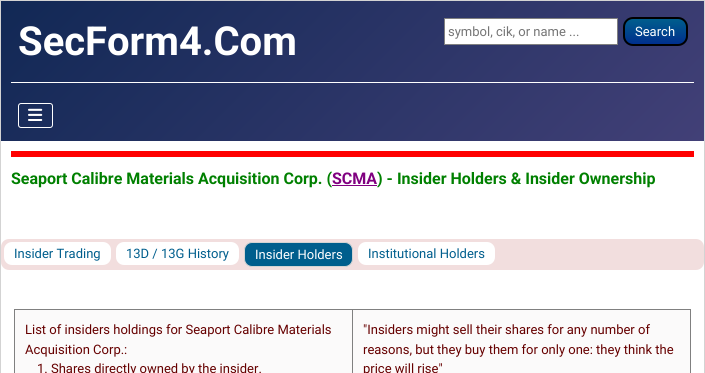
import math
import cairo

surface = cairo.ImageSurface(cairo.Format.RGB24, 705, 373)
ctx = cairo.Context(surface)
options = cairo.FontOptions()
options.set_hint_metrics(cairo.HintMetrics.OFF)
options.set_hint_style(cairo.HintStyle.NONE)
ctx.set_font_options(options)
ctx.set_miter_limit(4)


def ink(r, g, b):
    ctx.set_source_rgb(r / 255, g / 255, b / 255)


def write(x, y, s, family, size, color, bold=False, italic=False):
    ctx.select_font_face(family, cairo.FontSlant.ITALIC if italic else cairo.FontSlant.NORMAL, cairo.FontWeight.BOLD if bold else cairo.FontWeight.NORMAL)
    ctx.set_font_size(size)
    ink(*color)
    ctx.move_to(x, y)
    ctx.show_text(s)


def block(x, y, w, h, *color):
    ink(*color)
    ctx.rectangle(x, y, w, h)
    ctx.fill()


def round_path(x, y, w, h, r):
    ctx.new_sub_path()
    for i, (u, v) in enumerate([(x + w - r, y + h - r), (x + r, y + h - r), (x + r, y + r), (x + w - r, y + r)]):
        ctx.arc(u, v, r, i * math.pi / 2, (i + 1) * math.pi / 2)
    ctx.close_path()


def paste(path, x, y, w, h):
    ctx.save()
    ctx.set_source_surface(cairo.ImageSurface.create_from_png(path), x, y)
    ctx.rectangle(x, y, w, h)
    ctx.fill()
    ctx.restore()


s1 = dict(family="Roboto", size=40, color=(255, 255, 255), bold=True)
s2 = dict(family="Roboto", size=13, color=(117, 117, 117))
s3 = dict(family="Roboto", size=13, color=(255, 255, 255))
s4 = dict(family="Roboto", size=16, color=(0, 128, 0), bold=True)
s5 = dict(family="Roboto", size=16, color=(128, 0, 128), bold=True)
s6 = dict(family="Roboto", size=13, color=(0, 94, 141))
s7 = dict(family="Roboto", size=13, color=(102, 0, 0))

ink(255, 255, 255)
ctx.paint()
ctx.rectangle(0.5, 0.5, 704, 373)
ink(211, 211, 211)
ctx.set_line_width(1)
ctx.stroke()
gradient = cairo.LinearGradient(142, -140, 563, 282)
gradient.add_color_stop_rgba(0, 0.067, 0.157, 0.333, 1)
gradient.add_color_stop_rgba(1, 0.259, 0.251, 0.467, 1)
ctx.set_source(gradient)
ctx.rectangle(1, 1, 703, 140)
ctx.fill()
write(18, 55, "SecForm4.Com", **s1)
ctx.rectangle(444.5, 18.5, 173, 26)
ctx.fill_preserve()
ink(128, 128, 128)
ctx.stroke()
write(448, 36, "symbol, cik, or name ...", **s2)
ctx.save()
round_path(623, 17, 65, 29, 10)
ctx.clip()
gradient = cairo.LinearGradient(656, 19, 656, 44)
gradient.add_color_stop_rgba(0, 0, 0.369, 0.553, 1)
gradient.add_color_stop_rgba(1, 0, 0.184, 0.553, 1)
ctx.set_source(gradient)
ctx.rectangle(623, 19, 65, 25)
ctx.fill()
ctx.restore()
round_path(624, 18, 63, 27, 9)
ink(0, 0, 0)
ctx.set_line_width(2)
ctx.stroke()
write(635, 36, "Search", **s3)
block(11, 82, 683, 1, 255, 255, 255)
round_path(18.5, 103.5, 34, 24, 2.5)
ctx.set_line_width(1)
ctx.stroke()
paste("pic1.png", 28, 108, 15, 13)
block(11, 151, 683, 6, 255, 0, 0)
write(11, 184, "Seaport Calibre Materials Acquisition Corp. (", **s4)
write(332, 184, "SCMA", **s5)
block(332, 185, 45, 1, 128, 0, 128)
write(377, 184, ") - Insider Holders & Insider Ownership", **s4)
ink(242, 222, 222)
round_path(1, 239, 703, 31, 8)
ctx.fill()
ink(255, 255, 255)
round_path(4, 242, 107, 23, 8)
ctx.fill()
write(14, 258, "Insider Trading", **s6)
ink(255, 255, 255)
round_path(116, 242, 123, 23, 8)
ctx.fill()
write(126, 258, "13D / 13G History", **s6)
round_path(244.5, 242.5, 108, 24, 7.5)
ctx.fill_preserve()
ink(211, 211, 211)
ctx.stroke()
write(255, 259, "Insider Holders", **s3)
round_path(358, 242, 137, 23, 8)
ctx.fill()
write(368, 258, "Institutional Holders", **s6)
ink(251, 250, 250)
ctx.rectangle(14.5, 309.5, 338, 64)
ctx.fill_preserve()
ink(128, 128, 128)
ctx.stroke()
write(25, 334, "List of insiders holdings for Seaport Calibre Materials", **s7)
write(25, 354, "Acquisition Corp.:", **s7)
write(37, 373, "1. Shares directly owned by the insider.", **s7)
block(353, 310, 337, 63, 251, 250, 250)
block(353, 309, 338, 1, 128, 128, 128)
block(690, 309, 1, 64, 128, 128, 128)
write(363, 334, "\"Insiders might sell their shares for any number of", **s7)
write(363, 354, "reasons, but they buy them for only one: they think the", **s7)
write(363, 373, "price will rise\"", **s7)
surface.write_to_png("screenshot.png")
